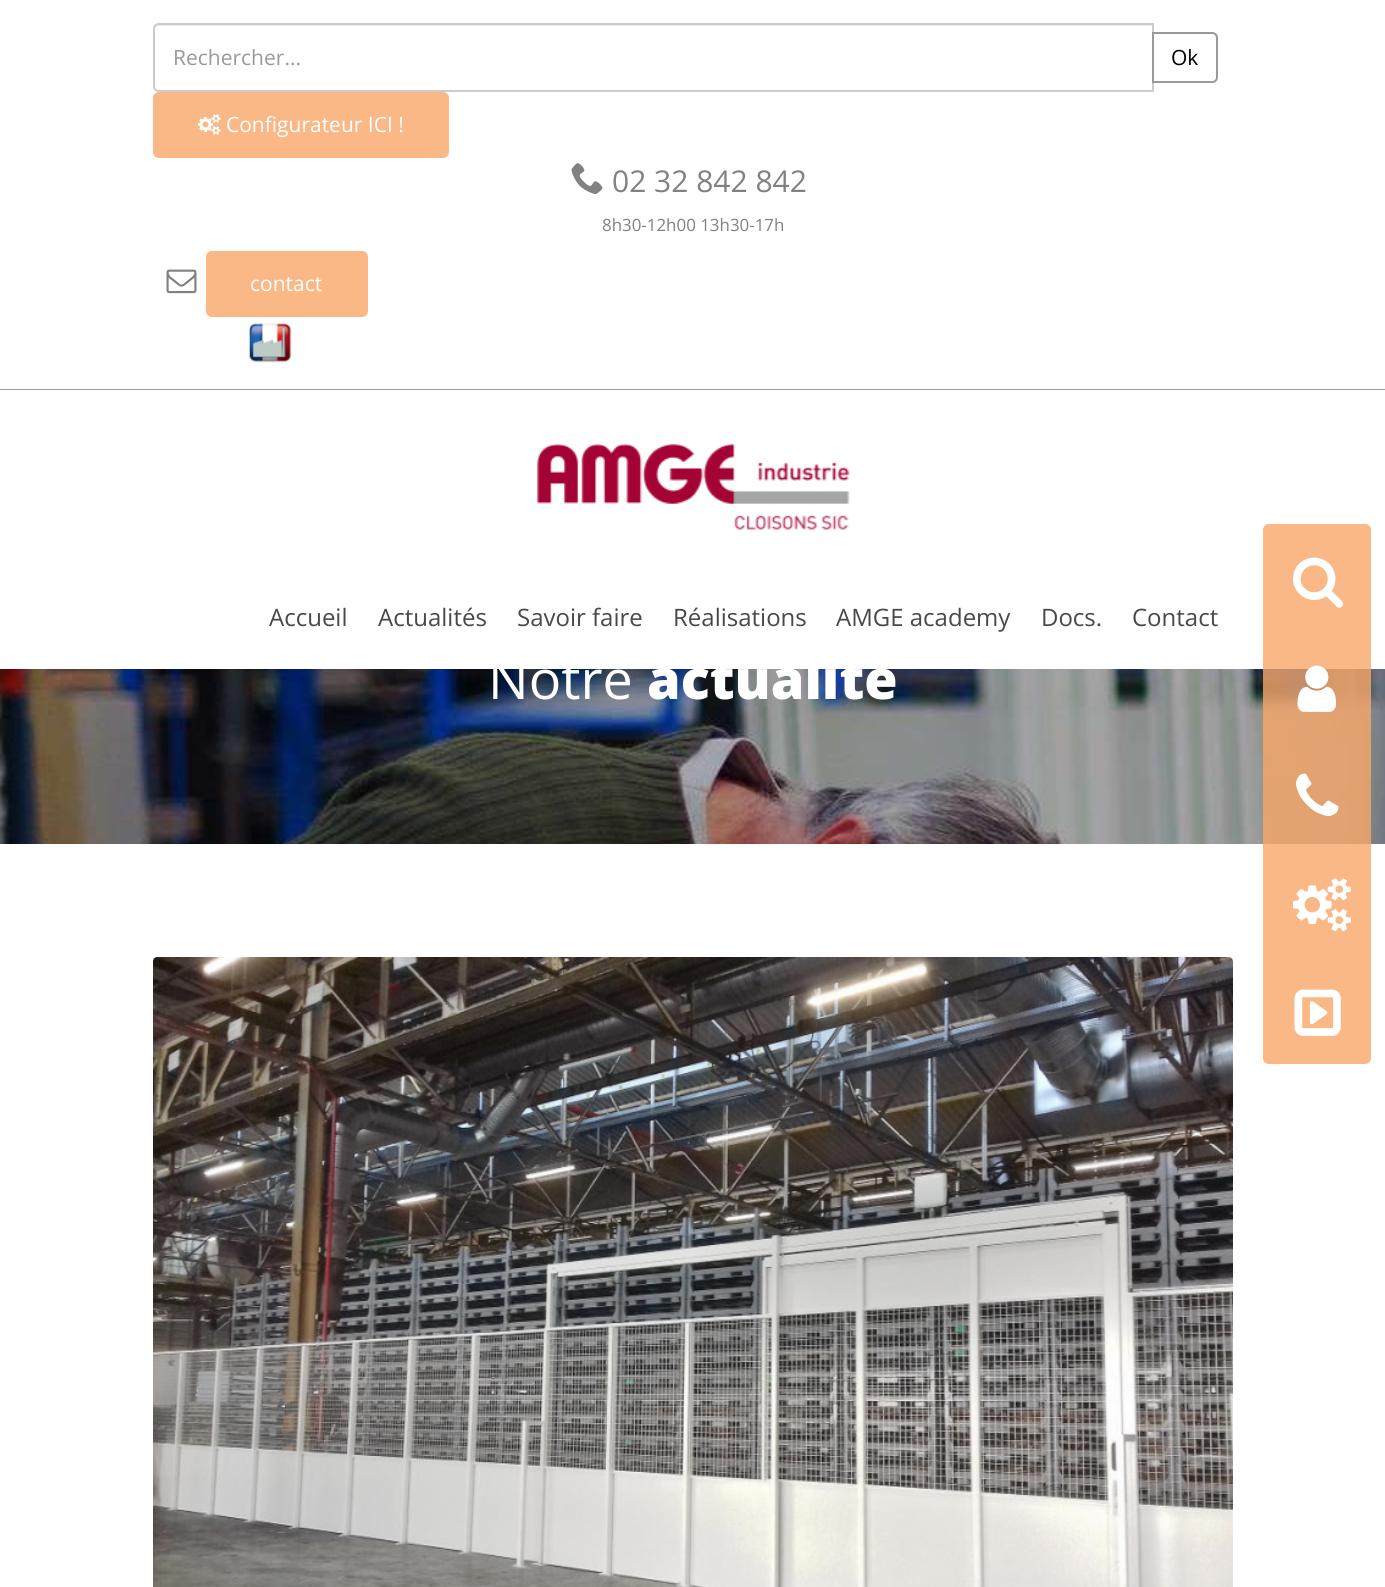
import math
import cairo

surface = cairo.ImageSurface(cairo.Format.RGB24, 1385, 1587)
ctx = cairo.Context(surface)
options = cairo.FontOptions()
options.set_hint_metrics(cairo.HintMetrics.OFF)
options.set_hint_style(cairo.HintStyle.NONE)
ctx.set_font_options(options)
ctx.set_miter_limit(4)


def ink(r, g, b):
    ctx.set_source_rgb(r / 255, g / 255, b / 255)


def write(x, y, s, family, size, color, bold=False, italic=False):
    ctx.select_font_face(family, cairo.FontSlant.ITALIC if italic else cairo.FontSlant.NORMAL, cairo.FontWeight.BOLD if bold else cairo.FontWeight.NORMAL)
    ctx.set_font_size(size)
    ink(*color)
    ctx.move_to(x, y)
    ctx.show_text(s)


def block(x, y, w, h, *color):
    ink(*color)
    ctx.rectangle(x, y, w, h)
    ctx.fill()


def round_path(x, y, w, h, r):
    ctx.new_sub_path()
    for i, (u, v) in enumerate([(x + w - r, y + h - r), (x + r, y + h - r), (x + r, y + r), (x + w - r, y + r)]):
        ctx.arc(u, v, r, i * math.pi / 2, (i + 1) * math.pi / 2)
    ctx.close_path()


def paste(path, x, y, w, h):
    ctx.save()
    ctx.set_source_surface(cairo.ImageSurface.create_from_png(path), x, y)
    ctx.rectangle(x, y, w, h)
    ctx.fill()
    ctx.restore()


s1 = dict(family="Open Sans", size=21, color=(153, 153, 153))
s2 = dict(family="Open Sans", size=21, color=(0, 0, 0))
s3 = dict(family="Open Sans", size=21, color=(255, 255, 255))
s4 = dict(family="Open Sans", size=30, color=(129, 129, 129))
s5 = dict(family="Open Sans", size=16.9, color=(129, 129, 129))
s6 = dict(family="Open Sans", size=24, color=(73, 73, 73))
s7 = dict(family="Open Sans", size=54, color=(255, 255, 255))
s8 = dict(family="Open Sans ExtraBold", size=54, color=(255, 255, 255))

ink(255, 255, 255)
ctx.paint()
block(0, 389, 1385, 1, 153, 153, 153)
ink(236, 236, 236)
ctx.new_path()
ctx.move_to(159, 26)
ctx.line_to(1152, 26)
ctx.line_to(1152, 24)
ctx.line_to(160, 24)
ctx.curve_to(158, 24, 156, 26, 155, 28)
ctx.curve_to(156, 27, 158, 26, 159, 26)
ctx.close_path()
ctx.fill()
ctx.new_path()
ctx.move_to(159, 24)
ctx.line_to(1153, 24)
ctx.line_to(1153, 91)
ctx.line_to(159, 91)
ctx.curve_to(156, 91, 154, 89, 154, 86)
ctx.line_to(154, 29)
ctx.curve_to(154, 26, 156, 24, 159, 24)
ctx.close_path()
ink(204, 204, 204)
ctx.stroke()
write(173, 65, "Rechercher...", **s1)
ctx.new_path()
ctx.move_to(1153, 33)
ctx.line_to(1212, 33)
ctx.curve_to(1215, 33, 1217, 35, 1217, 38)
ctx.line_to(1217, 77)
ctx.curve_to(1217, 80, 1215, 82, 1212, 82)
ctx.line_to(1153, 82)
ctx.close_path()
ctx.stroke()
write(1171, 65, "Ok", **s2)
ink(249, 184, 134)
round_path(153, 92, 296, 66, 6)
ctx.fill()
paste("pic1.png", 198, 114, 23, 21)
write(226, 132, "Configurateur ICI !", **s3)
paste("pic2.png", 571, 163, 32, 31)
write(612, 192, "02 32 842 842", **s4)
write(602, 231, "8h30-12h00 13h30-17h", **s5)
paste("pic3.png", 166, 269, 31, 25)
ink(249, 184, 134)
round_path(206, 251, 162, 66, 6)
ctx.fill()
write(250, 291, "contact", **s3)
paste("pic4.png", 248, 322, 44, 41)
paste("pic5.png", 536, 443, 314, 87)
write(269, 626, "Accueil", **s6)
write(378, 626, "Actualités", **s6)
write(517, 626, "Savoir faire", **s6)
write(673, 626, "Réalisations", **s6)
write(836, 626, "AMGE academy", **s6)
write(1041, 626, "Docs.", **s6)
write(1132, 626, "Contact", **s6)
paste("pic6.png", 0, 669, 1385, 175)
write(488, 699, "Notre", **s7)
write(647, 699, "actualité", **s8)
paste("pic7.png", 153, 957, 1080, 630)
ink(249, 184, 134)
ctx.new_path()
ctx.move_to(1269, 524)
ctx.line_to(1365, 524)
ctx.curve_to(1368.5, 524, 1371, 526.5, 1371, 530)
ctx.line_to(1371, 632)
ctx.line_to(1263, 632)
ctx.line_to(1263, 530)
ctx.curve_to(1263, 526.5, 1265.5, 524, 1269, 524)
ctx.close_path()
ctx.fill()
paste("pic8.png", 1293, 557, 51, 51)
ctx.set_source_rgba(0.969, 0.651, 0.408, 0.8)
ctx.rectangle(1263, 632, 108, 108)
ctx.fill()
paste("pic9.png", 1297, 665, 40, 47)
ctx.rectangle(1263, 740, 108, 108)
ctx.fill()
paste("pic10.png", 1296, 773, 43, 43)
block(1263, 848, 108, 108, 249, 184, 134)
paste("pic11.png", 1293, 878, 58, 54)
ctx.new_path()
ctx.move_to(1263, 956)
ctx.line_to(1371, 956)
ctx.line_to(1371, 1058)
ctx.curve_to(1371, 1061.5, 1368.5, 1064, 1365, 1064)
ctx.line_to(1269, 1064)
ctx.curve_to(1265.5, 1064, 1263, 1061.5, 1263, 1058)
ctx.close_path()
ctx.fill()
paste("pic12.png", 1294, 989, 47, 47)
surface.write_to_png("screenshot.png")
